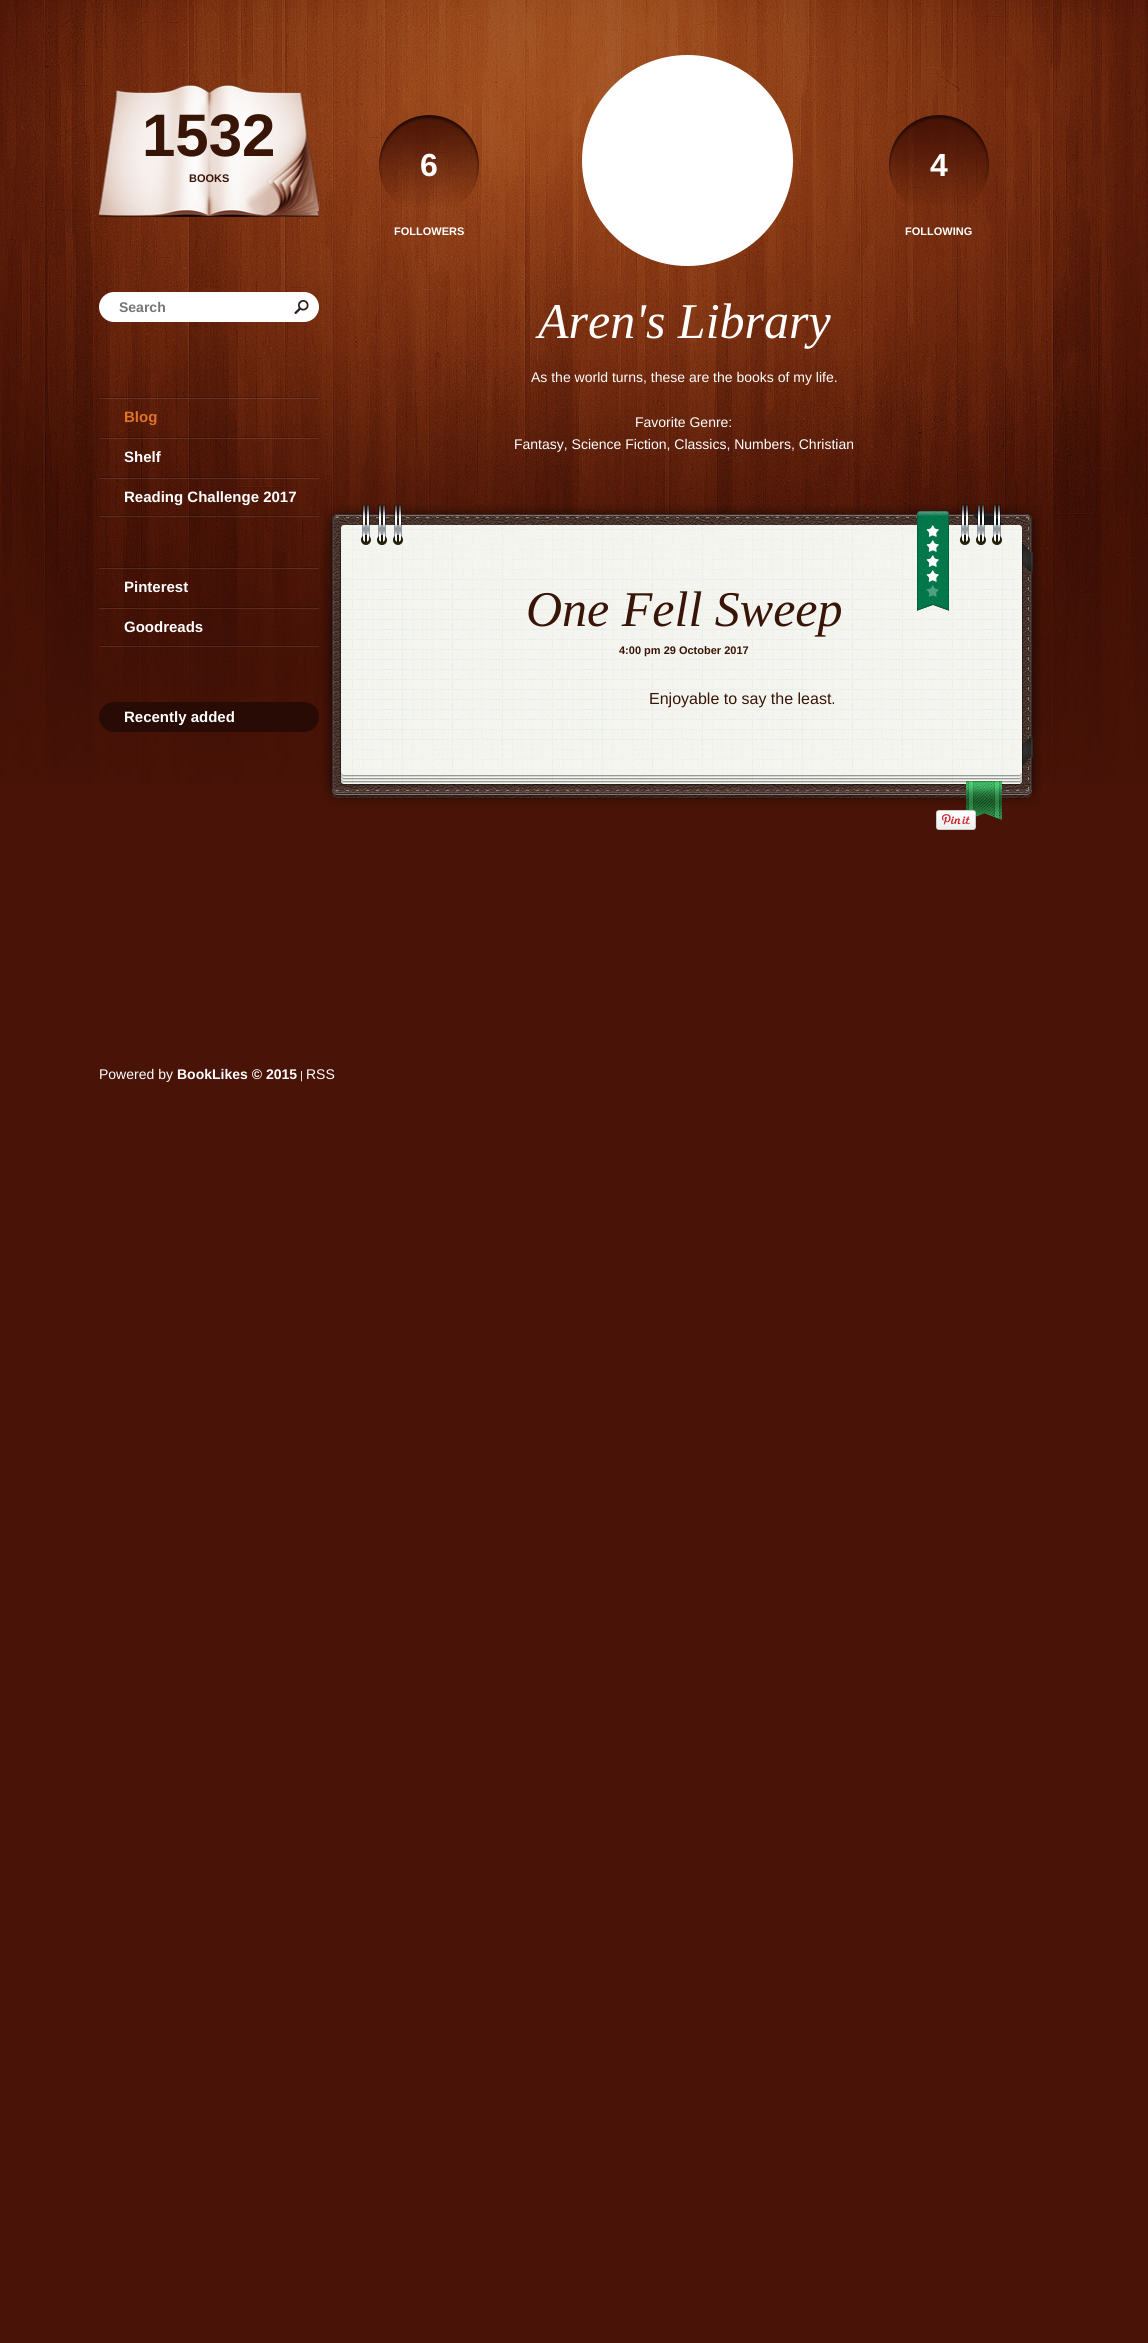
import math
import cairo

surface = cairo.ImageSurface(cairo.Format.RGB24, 1148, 2343)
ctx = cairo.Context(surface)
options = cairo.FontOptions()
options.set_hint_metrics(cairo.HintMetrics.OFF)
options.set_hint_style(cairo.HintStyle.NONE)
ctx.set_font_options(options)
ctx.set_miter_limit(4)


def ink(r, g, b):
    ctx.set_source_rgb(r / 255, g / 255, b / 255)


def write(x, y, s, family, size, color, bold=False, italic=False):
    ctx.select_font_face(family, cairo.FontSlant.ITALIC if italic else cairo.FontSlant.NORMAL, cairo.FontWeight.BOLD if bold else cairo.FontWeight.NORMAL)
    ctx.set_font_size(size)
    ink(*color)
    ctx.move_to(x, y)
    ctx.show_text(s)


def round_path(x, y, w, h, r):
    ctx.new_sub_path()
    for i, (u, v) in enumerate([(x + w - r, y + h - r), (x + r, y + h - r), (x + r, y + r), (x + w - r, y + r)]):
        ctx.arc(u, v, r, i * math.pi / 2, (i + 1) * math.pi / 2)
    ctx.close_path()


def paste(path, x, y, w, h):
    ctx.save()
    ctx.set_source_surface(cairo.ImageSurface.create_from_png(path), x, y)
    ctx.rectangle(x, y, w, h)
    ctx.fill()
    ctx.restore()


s1 = dict(family="Liberation Sans", size=60, color=(56, 21, 7), bold=True)
s2 = dict(family="Liberation Sans", size=11, color=(56, 21, 7), bold=True)
s3 = dict(family="Liberation Sans", size=14, color=(117, 117, 117), bold=True)
s4 = dict(family="Liberation Sans", size=15, color=(223, 115, 39), bold=True)
s5 = dict(family="Liberation Sans", size=15, color=(255, 255, 255), bold=True)
s6 = dict(family="Liberation Sans", size=32, color=(255, 255, 255), bold=True)
s7 = dict(family="Liberation Sans", size=11, color=(255, 255, 255), bold=True)
s8 = dict(family="Liberation Serif", size=50, color=(255, 255, 255), italic=True)
s9 = dict(family="Liberation Sans", size=14, color=(255, 255, 255))
s10 = dict(family="Liberation Serif", size=50, color=(56, 21, 7), italic=True)
s11 = dict(family="Liberation Sans", size=16, color=(56, 21, 7))
s12 = dict(family="Liberation Sans", size=14, color=(255, 255, 255), bold=True)
s13 = dict(family="Liberation Sans", size=11, color=(255, 255, 255))

ink(73, 19, 7)
ctx.paint()
paste("pic1.png", 0, 0, 1148, 784)
paste("pic2.png", 99, 85, 220, 132)
write(142, 156, "1532", **s1)
write(189, 182, "BOOKS", **s2)
ink(255, 255, 255)
round_path(99, 292, 220, 30, 15)
ctx.fill()
paste("pic3.png", 294, 300, 15, 14)
write(119, 312, "Search", **s3)
paste("pic4.png", 99, 515, 220, 2)
paste("pic5.png", 99, 397, 220, 2)
write(124, 422, "Blog", **s4)
paste("pic6.png", 99, 437, 220, 2)
write(124, 462, "Shelf", **s5)
paste("pic7.png", 99, 477, 220, 2)
write(124, 502, "Reading Challenge 2017", **s5)
paste("pic8.png", 99, 645, 220, 2)
paste("pic9.png", 99, 567, 220, 2)
write(124, 592, "Pinterest", **s5)
paste("pic10.png", 99, 607, 220, 2)
write(124, 632, "Goodreads", **s5)
ink(40, 11, 5)
round_path(99, 702, 220, 30, 15)
ctx.fill()
write(124, 722, "Recently added", **s5)
paste("pic11.png", 379, 115, 100, 92)
write(420, 176, "6", **s6)
write(394, 235, "FOLLOWERS", **s7)
ctx.new_path()
ctx.arc(687.5, 160.5, 105.5, 0, 2 * math.pi)
ctx.fill()
paste("pic12.png", 889, 115, 100, 90)
write(930, 176, "4", **s6)
write(905, 235, "FOLLOWING", **s7)
write(538, 338, "Aren's Library", **s8)
write(531, 382, "As the world turns, these are the books of my life.", **s9)
write(635, 427, "Favorite Genre:", **s9)
write(514, 449, "Fantasy, Science Fiction, Classics, Numbers, Christian", **s9)
paste("pic13.png", 323, 504, 718, 75)
paste("pic14.png", 323, 579, 718, 151)
write(526, 626, "One Fell Sweep", **s10)
paste("pic15.png", 917, 511, 32, 100)
write(619, 654, "4:00 pm 29 October 2017", **s2)
write(649, 704, "Enjoyable to say the least.", **s11)
paste("pic16.png", 323, 730, 718, 90)
paste("pic17.png", 936, 810, 40, 20)
write(99, 1079, "Powered by", **s9)
write(177, 1079, "BookLikes © 2015", **s12)
write(300, 1079, "|", **s13)
write(306, 1079, "RSS", **s9)
surface.write_to_png("screenshot.png")
